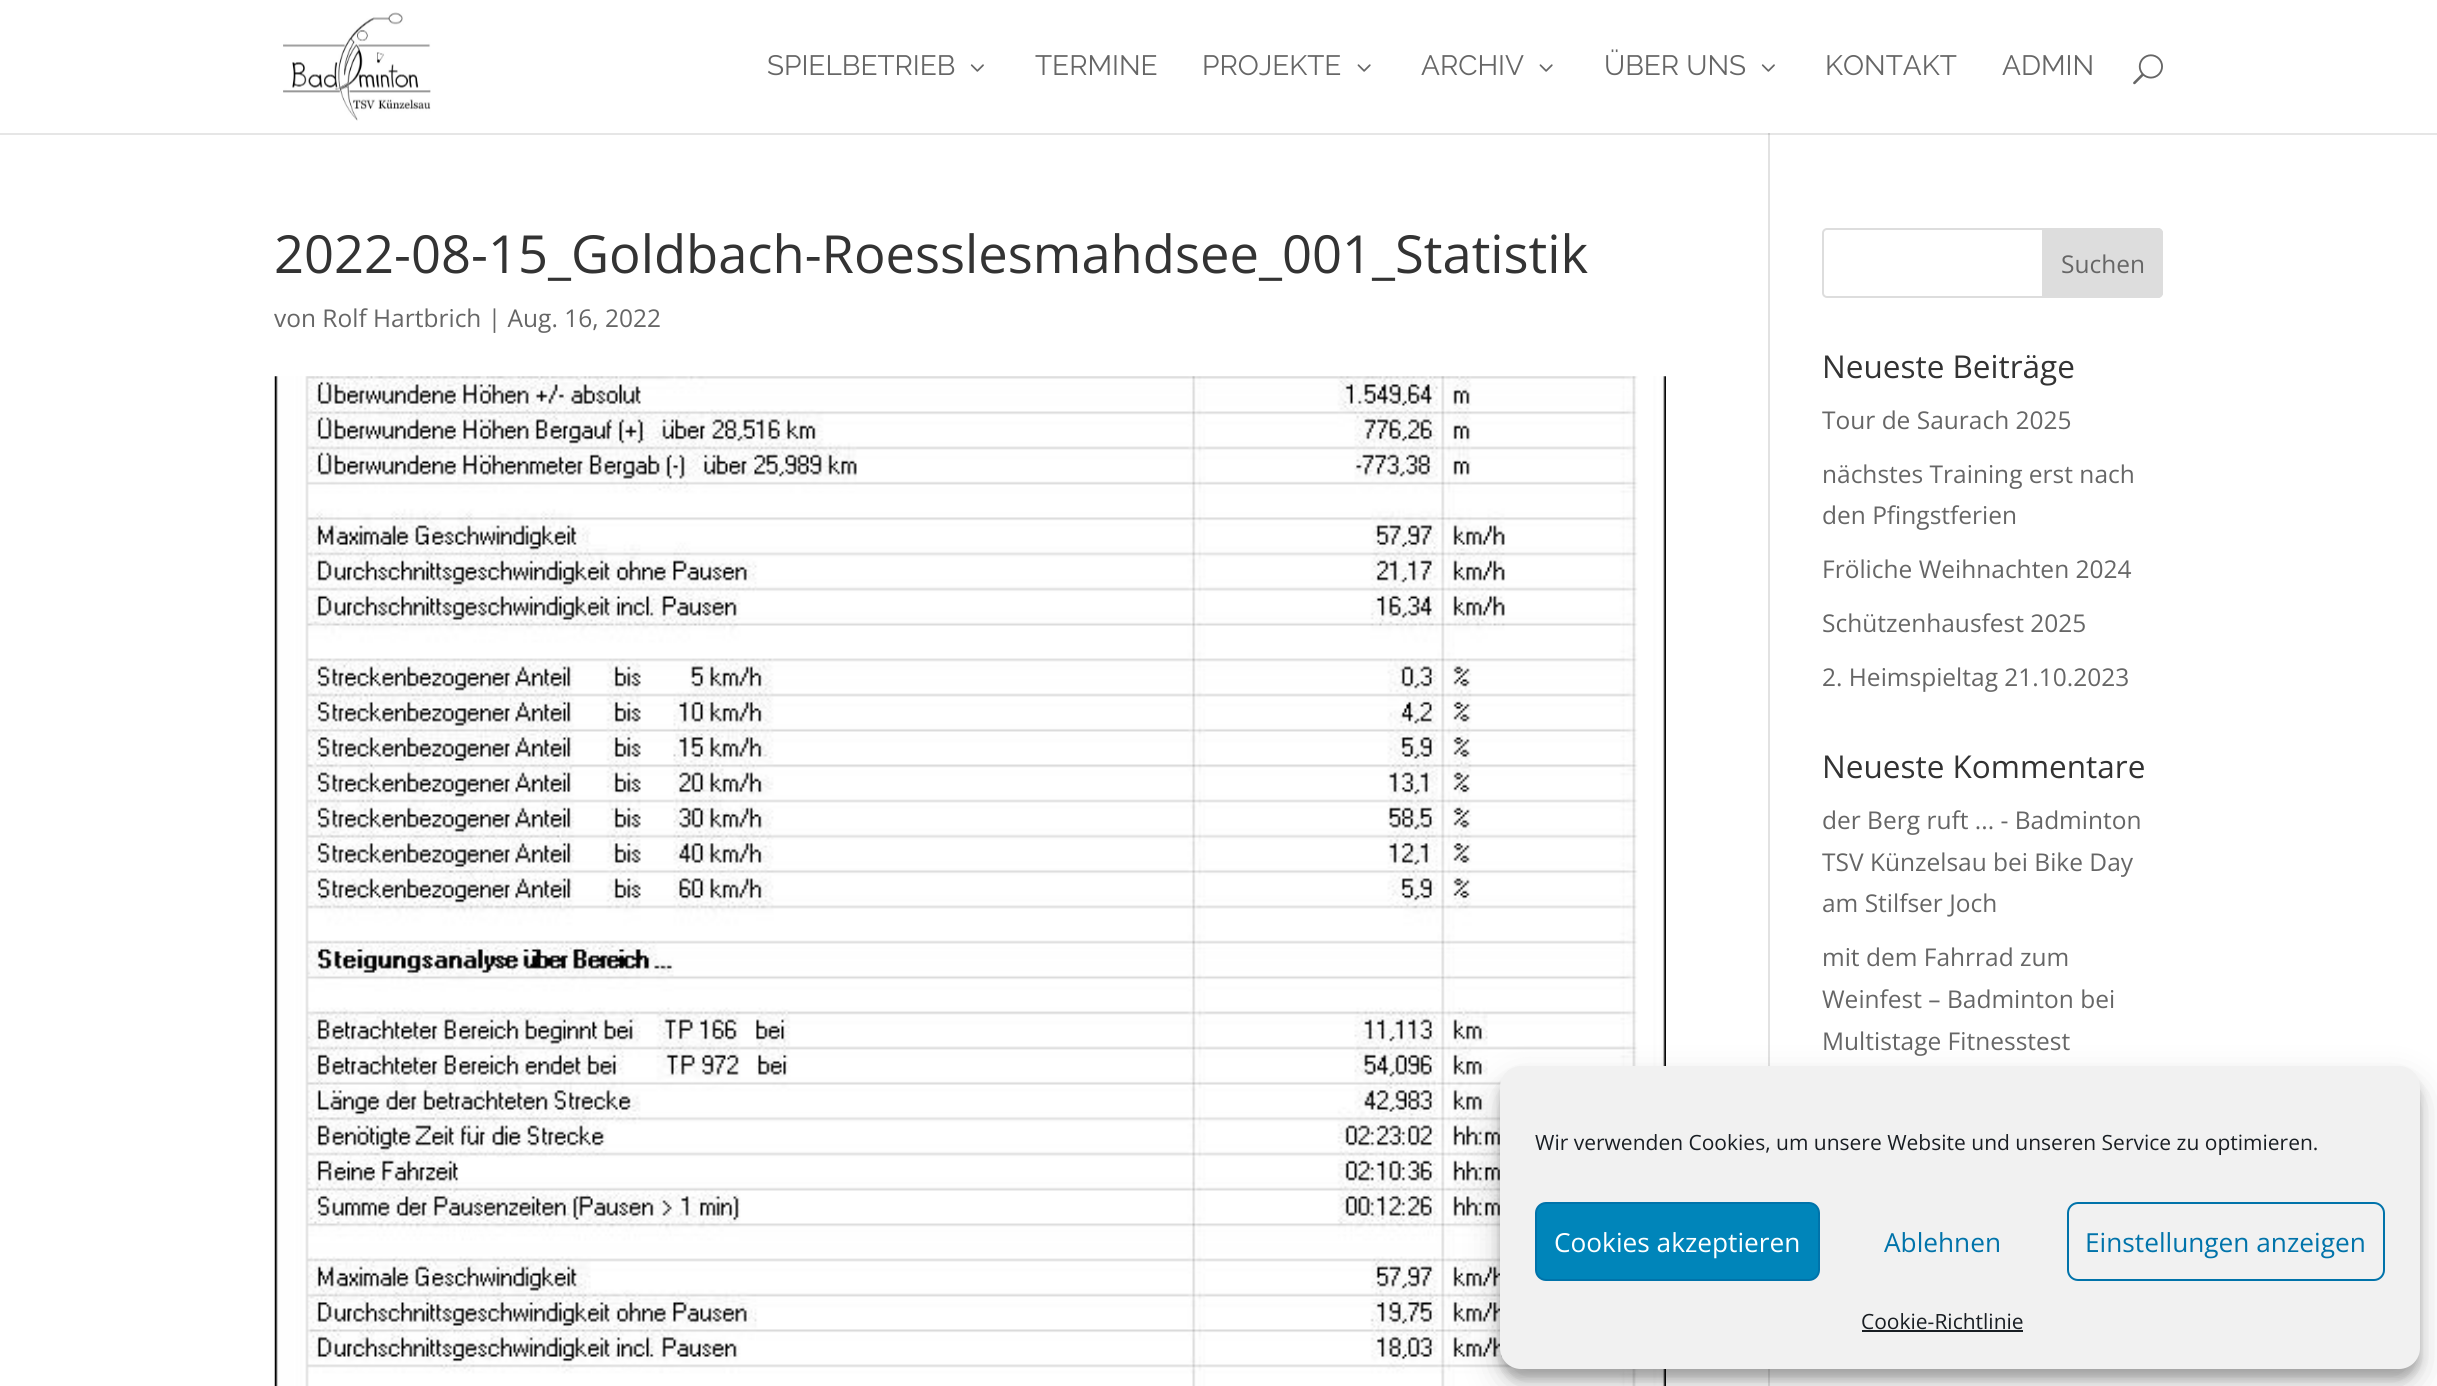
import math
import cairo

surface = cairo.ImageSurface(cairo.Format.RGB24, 2437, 1386)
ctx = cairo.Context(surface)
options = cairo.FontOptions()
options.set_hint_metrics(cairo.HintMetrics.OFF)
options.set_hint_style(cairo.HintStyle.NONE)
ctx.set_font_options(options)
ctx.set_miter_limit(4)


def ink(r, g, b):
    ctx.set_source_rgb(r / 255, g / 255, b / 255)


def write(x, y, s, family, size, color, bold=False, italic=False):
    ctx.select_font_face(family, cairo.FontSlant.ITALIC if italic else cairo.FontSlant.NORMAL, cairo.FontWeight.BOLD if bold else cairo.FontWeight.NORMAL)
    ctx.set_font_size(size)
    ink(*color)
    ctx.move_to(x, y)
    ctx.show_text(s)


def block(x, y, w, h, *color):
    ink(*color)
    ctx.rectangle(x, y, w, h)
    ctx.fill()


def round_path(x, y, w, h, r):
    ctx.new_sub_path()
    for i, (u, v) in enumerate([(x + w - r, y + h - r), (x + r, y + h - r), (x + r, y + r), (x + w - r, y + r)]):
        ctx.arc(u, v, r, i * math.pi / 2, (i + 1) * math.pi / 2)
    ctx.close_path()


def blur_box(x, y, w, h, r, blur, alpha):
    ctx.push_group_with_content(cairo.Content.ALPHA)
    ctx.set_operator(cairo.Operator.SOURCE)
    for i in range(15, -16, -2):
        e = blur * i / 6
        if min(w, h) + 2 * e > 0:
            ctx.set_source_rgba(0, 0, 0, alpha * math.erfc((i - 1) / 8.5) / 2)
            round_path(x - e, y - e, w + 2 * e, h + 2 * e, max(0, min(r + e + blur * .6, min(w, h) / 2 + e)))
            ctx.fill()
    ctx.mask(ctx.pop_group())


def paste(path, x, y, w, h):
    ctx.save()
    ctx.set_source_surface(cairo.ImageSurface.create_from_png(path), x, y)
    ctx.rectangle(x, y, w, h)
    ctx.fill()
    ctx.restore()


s1 = dict(family="Raleway", size=28, color=(102, 102, 102))
s2 = dict(family="Open Sans", size=52.5, color=(51, 51, 51))
s3 = dict(family="Open Sans", size=24.5, color=(102, 102, 102))
s4 = dict(family="Open Sans", size=31.5, color=(51, 51, 51))
s5 = dict(family="Open Sans", size=21, color=(25, 30, 35))
s6 = dict(family="Open Sans", size=26.25, color=(255, 255, 255))
s7 = dict(family="Open Sans", size=26.25, color=(0, 115, 170))

ink(255, 255, 255)
ctx.paint()
block(1768, 126, 2, 1260, 226, 226, 226)
ctx.set_source_rgba(0, 0, 0, 0.1)
ctx.new_path()
ctx.move_to(0, 133)
ctx.line_to(0, 135)
ctx.line_to(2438, 135)
ctx.line_to(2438, 2)
ctx.line_to(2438, 133)
ctx.close_path()
ctx.fill()
block(1768, 126, 2, 7, 255, 255, 255)
paste("pic1.png", 283, 12, 148, 109)
write(767, 75, "SPIELBETRIEB", **s1)
paste("pic2.png", 970, 64, 14, 8)
write(1035, 75, "TERMINE", **s1)
write(1202, 75, "PROJEKTE", **s1)
paste("pic3.png", 1357, 64, 14, 8)
write(1421, 75, "ARCHIV", **s1)
paste("pic3.png", 1539, 64, 14, 8)
write(1604, 75, "ÜBER UNS", **s1)
paste("pic2.png", 1761, 64, 14, 8)
write(1825, 75, "KONTAKT", **s1)
write(2002, 75, "ADMIN", **s1)
paste("pic4.png", 2133, 54, 30, 31)
write(274, 273, "2022-08-15_Goldbach-Roesslesmahdsee_001_Statistik", **s2)
write(274, 327, "von Rolf Hartbrich | Aug. 16, 2022", **s3)
paste("pic5.png", 274, 376, 1392, 1010)
round_path(1823, 229, 339, 68, 4)
ink(221, 221, 221)
ctx.stroke()
ctx.new_path()
ctx.move_to(2043, 229)
ctx.line_to(2158, 229)
ctx.curve_to(2160, 229, 2162, 231, 2162, 233)
ctx.line_to(2162, 293)
ctx.curve_to(2162, 295, 2160, 297, 2158, 297)
ctx.line_to(2043, 297)
ctx.close_path()
ctx.fill_preserve()
ctx.stroke()
write(2061, 273, "Suchen", **s3)
write(1822, 378, "Neueste Beiträge", **s4)
write(1822, 429, "Tour de Saurach 2025", **s3)
write(1822, 483, "nächstes Training erst nach", **s3)
write(1822, 524, "den Pfingstferien", **s3)
write(1822, 578, "Fröliche Weihnachten 2024", **s3)
write(1822, 632, "Schützenhausfest 2025", **s3)
write(1822, 686, "2. Heimspieltag 21.10.2023", **s3)
write(1822, 778, "Neueste Kommentare", **s4)
write(1822, 829, "der Berg ruft ... - Badminton", **s3)
write(1822, 871, "TSV Künzelsau bei Bike Day", **s3)
write(1822, 912, "am Stilfser Joch", **s3)
write(1822, 966, "mit dem Fahrrad zum", **s3)
write(1822, 1008, "Weinfest – Badminton bei", **s3)
write(1822, 1050, "Multistage Fitnesstest", **s3)
ink(0, 0, 0)
blur_box(1500, 1076, 920, 303, 21, 5, 0.23)
blur_box(1500, 1083, 920, 303, 21, 17.5, 0.19)
ink(241, 241, 241)
round_path(1500, 1066, 920, 303, 21)
ctx.fill()
write(1535, 1150, "Wir verwenden Cookies, um unsere Website und unseren Service zu optimieren.", **s5)
ink(0, 133, 186)
round_path(1536, 1203, 283, 77, 10)
ctx.fill_preserve()
ink(0, 115, 170)
ctx.stroke()
write(1554, 1252, "Cookies akzeptieren", **s6)
write(1884, 1252, "Ablehnen", **s7)
round_path(2068, 1203, 316, 77, 10)
ctx.stroke()
write(2085, 1252, "Einstellungen anzeigen", **s7)
write(1861, 1329, "Cookie-Richtlinie", **s5)
block(1862, 1330, 161, 2, 25, 30, 35)
surface.write_to_png("screenshot.png")
